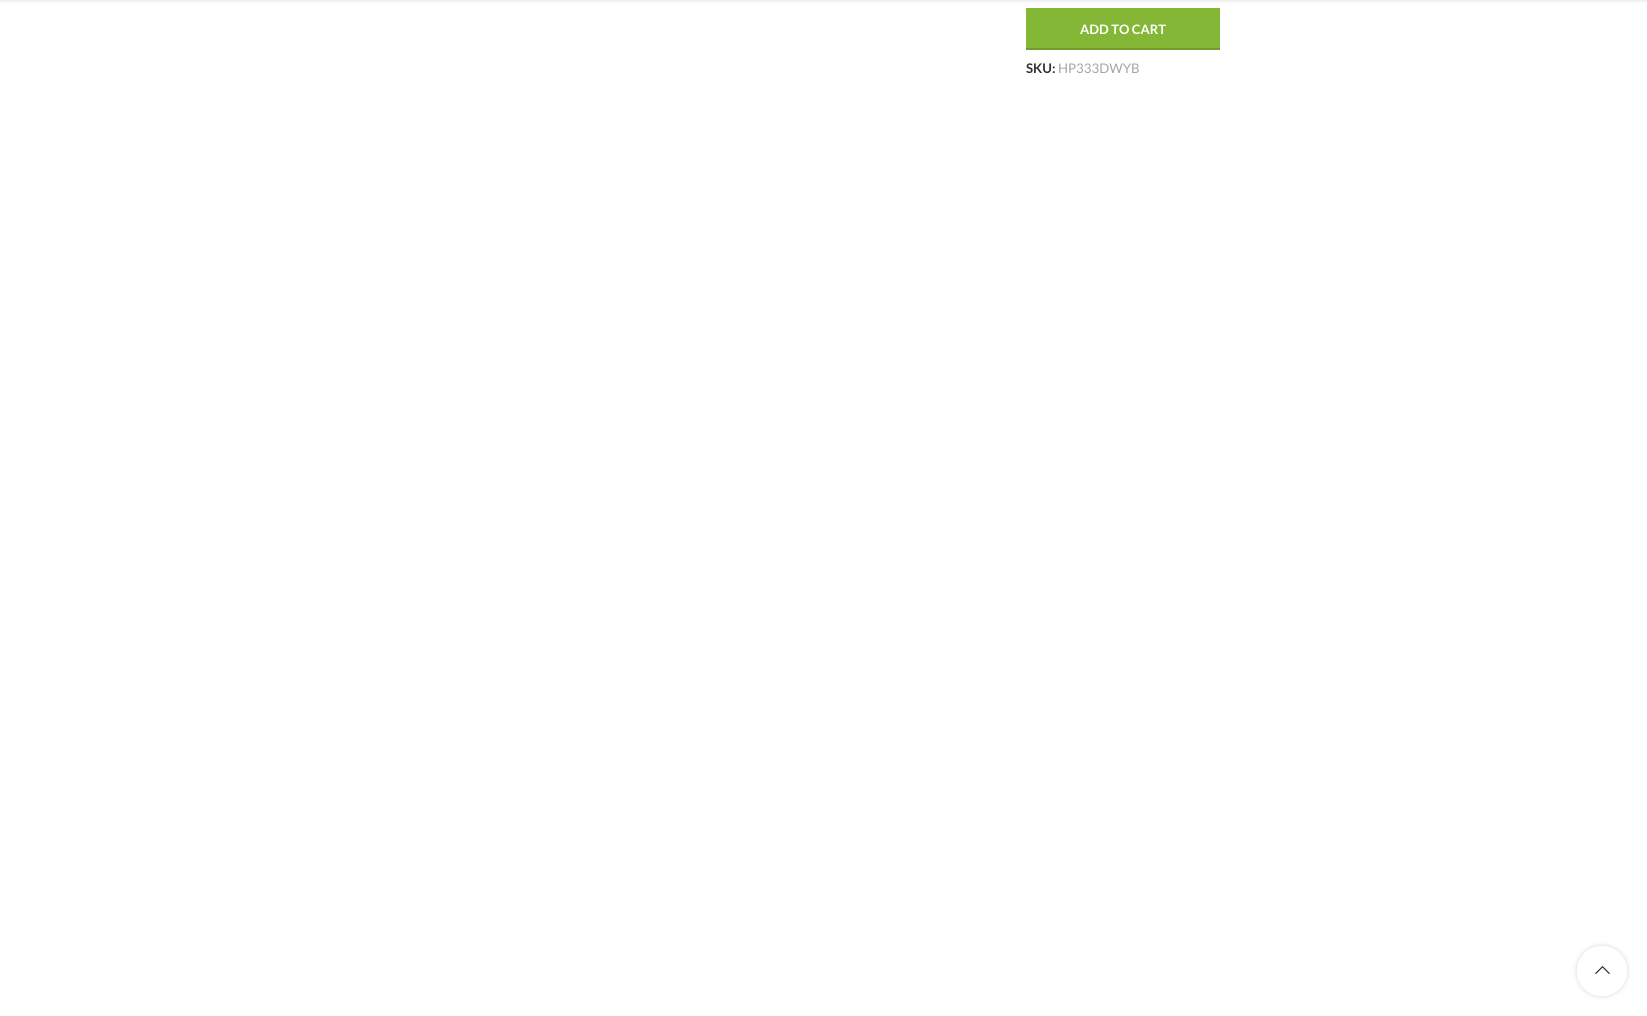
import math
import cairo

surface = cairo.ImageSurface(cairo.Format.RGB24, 1647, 1016)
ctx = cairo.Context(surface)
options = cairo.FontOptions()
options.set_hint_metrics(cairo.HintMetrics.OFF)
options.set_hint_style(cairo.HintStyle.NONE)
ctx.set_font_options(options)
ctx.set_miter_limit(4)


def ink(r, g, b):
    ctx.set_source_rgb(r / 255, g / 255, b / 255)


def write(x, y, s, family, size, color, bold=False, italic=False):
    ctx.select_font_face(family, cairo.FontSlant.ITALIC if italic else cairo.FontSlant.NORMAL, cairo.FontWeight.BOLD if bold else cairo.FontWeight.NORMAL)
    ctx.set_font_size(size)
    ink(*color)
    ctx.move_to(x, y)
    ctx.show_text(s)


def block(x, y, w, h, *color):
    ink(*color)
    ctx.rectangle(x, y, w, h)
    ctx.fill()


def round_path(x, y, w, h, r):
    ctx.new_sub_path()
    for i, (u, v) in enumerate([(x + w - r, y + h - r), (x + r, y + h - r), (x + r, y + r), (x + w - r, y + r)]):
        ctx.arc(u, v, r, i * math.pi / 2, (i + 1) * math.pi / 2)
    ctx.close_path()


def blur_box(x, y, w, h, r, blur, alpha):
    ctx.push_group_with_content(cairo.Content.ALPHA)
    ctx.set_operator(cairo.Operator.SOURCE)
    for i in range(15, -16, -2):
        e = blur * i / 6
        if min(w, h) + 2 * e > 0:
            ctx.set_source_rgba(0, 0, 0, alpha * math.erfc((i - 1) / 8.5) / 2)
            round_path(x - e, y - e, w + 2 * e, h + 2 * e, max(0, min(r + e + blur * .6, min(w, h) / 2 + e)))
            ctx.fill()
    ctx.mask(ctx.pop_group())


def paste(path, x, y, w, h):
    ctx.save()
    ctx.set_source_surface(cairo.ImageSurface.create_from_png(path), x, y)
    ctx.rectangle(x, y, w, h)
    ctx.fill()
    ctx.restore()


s1 = dict(family="Lato", size=13, color=(255, 255, 255), bold=True)
s2 = dict(family="Lato", size=13.25, color=(51, 51, 51), bold=True)
s3 = dict(family="Lato", size=13.25, color=(165, 165, 165))

ink(255, 255, 255)
ctx.paint()
ink(0, 0, 0)
blur_box(0, -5, 1647, 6, 0, 1.5, 0.1)
block(1026, 8, 194, 40, 131, 183, 53)
block(1026, 48, 194, 2, 111, 156, 45)
write(1080, 34, "ADD TO CART", **s1)
write(1026, 73, "SKU:", **s2)
write(1058, 73, "HP333DWYB", **s3)
ctx.save()
ctx.set_fill_rule(cairo.FillRule.EVEN_ODD)
ctx.new_path()
ctx.move_to(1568, 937)
ctx.line_to(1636, 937)
ctx.line_to(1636, 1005)
ctx.line_to(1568, 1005)
ctx.close_path()
ctx.move_to(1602, 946)
ctx.curve_to(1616, 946, 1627, 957, 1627, 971)
ctx.curve_to(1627, 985, 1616, 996, 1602, 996)
ctx.curve_to(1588, 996, 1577, 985, 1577, 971)
ctx.curve_to(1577, 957, 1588, 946, 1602, 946)
ctx.close_path()
ctx.clip()
ink(0, 0, 0)
blur_box(1577, 946, 50, 50, 25, 2.5, 0.17)
ctx.restore()
ctx.set_source_rgba(1, 1, 1, 0.9)
ctx.arc(1602, 971, 25, 0, 2 * math.pi)
ctx.fill()
paste("pic1.png", 1595, 965, 15, 9)
surface.write_to_png("screenshot.png")
